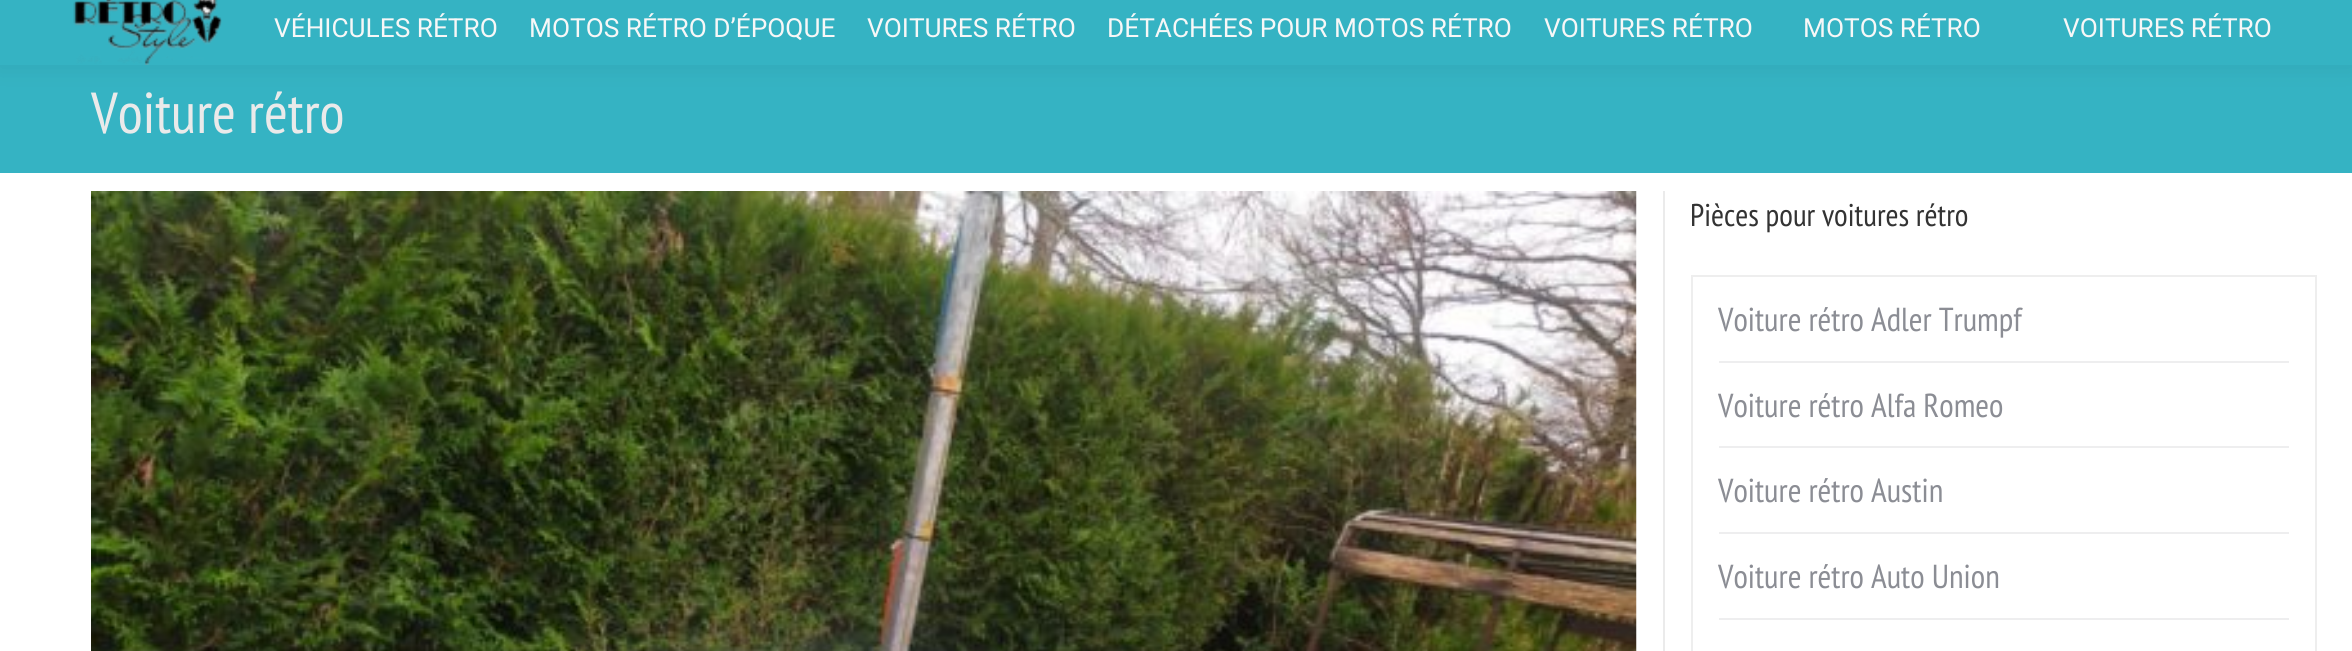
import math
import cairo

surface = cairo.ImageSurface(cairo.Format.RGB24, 2352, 651)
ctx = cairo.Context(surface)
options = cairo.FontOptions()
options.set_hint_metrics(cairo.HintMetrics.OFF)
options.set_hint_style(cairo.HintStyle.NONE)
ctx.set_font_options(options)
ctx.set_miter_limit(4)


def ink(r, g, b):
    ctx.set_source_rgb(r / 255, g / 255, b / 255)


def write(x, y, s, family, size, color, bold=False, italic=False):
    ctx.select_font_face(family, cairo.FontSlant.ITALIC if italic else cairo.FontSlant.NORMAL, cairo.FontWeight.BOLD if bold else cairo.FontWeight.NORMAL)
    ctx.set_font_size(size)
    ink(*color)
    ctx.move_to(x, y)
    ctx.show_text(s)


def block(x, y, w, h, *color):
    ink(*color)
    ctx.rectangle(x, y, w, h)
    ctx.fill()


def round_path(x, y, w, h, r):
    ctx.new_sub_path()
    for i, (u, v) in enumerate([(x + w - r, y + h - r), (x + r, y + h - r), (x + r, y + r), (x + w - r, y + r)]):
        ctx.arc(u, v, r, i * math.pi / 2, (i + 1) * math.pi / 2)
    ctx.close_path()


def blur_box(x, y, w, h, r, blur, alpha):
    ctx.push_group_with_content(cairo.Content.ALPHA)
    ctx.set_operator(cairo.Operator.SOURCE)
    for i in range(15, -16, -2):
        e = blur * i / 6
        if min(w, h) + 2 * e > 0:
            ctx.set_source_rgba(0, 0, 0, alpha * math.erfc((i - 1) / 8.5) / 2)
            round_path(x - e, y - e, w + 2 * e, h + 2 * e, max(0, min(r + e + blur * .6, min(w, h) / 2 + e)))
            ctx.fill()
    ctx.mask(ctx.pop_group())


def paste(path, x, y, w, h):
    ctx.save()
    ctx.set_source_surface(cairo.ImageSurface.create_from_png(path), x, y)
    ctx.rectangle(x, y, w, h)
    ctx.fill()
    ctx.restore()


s1 = dict(family="Roboto", size=26.25, color=(247, 247, 247))
s2 = dict(family="PT Sans Narrow", size=57.75, color=(234, 234, 234))
s3 = dict(family="PT Sans Narrow", size=31.5, color=(51, 51, 51))
s4 = dict(family="PT Sans Narrow", size=33.25, color=(139, 141, 148))

ink(255, 255, 255)
ctx.paint()
block(0, 65, 2352, 108, 53, 179, 195)
ink(0, 0, 0)
blur_box(-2, -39, 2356, 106, 0, 13, 0.07)
block(0, 0, 2352, 65, 53, 179, 195)
paste("pic1.png", 73, 0, 149, 65)
write(274, 37, "VÉHICULES RÉTRO", **s1)
write(529, 37, "MOTOS RÉTRO D’ÉPOQUE", **s1)
write(867, 37, "VOITURES RÉTRO", **s1)
write(1107, 37, "DÉTACHÉES POUR MOTOS RÉTRO", **s1)
write(1544, 37, "VOITURES RÉTRO", **s1)
write(1803, 37, "MOTOS RÉTRO", **s1)
write(2063, 37, "VOITURES RÉTRO", **s1)
write(91, 133, "Voiture rétro", **s2)
paste("pic2.png", 91, 191, 1546, 460)
block(1663, 191, 2, 460, 235, 235, 235)
write(1690, 226, "Pièces pour voitures rétro", **s3)
ctx.rectangle(1692, 276, 624, 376)
ink(238, 238, 238)
ctx.stroke()
write(1718, 331, "Voiture rétro Adler Trumpf", **s4)
block(1719, 361, 570, 2, 238, 238, 239)
write(1718, 417, "Voiture rétro Alfa Romeo", **s4)
block(1719, 446, 570, 2, 238, 238, 239)
write(1718, 502, "Voiture rétro Austin", **s4)
block(1719, 532, 570, 2, 238, 238, 239)
write(1718, 588, "Voiture rétro Auto Union", **s4)
block(1719, 618, 570, 2, 238, 238, 239)
surface.write_to_png("screenshot.png")
